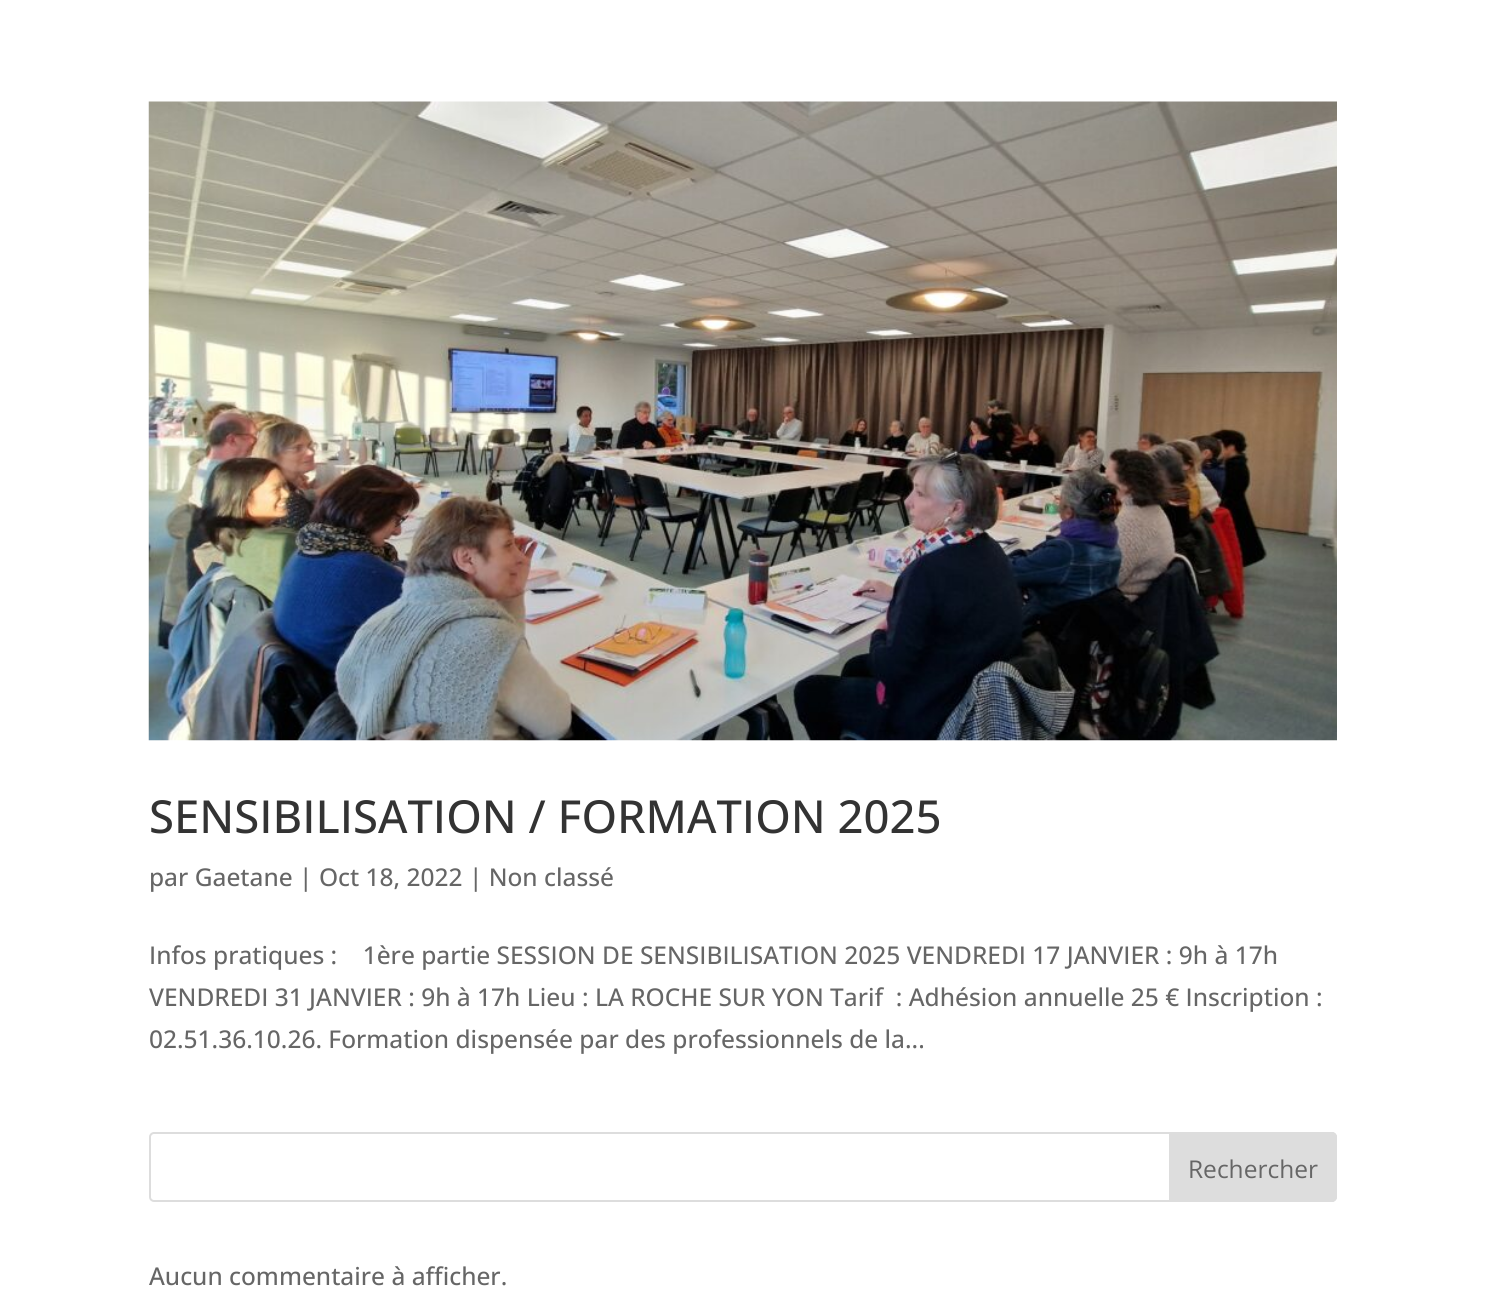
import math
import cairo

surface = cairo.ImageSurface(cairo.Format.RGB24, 1485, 1305)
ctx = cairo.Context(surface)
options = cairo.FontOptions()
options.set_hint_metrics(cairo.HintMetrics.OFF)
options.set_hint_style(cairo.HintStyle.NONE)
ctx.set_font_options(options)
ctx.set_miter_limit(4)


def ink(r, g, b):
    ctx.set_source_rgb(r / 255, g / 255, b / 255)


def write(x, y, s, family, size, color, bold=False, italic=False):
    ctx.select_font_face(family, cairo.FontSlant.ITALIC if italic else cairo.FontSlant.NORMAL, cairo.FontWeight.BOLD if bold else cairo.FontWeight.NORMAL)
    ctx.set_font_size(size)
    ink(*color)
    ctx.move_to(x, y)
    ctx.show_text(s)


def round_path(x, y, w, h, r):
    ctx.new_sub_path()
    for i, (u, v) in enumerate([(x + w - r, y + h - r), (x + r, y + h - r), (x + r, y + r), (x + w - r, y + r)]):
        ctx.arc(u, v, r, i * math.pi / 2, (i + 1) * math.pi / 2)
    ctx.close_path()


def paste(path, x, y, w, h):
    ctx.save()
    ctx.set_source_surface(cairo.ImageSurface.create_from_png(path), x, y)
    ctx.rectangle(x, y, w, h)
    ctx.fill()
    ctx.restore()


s1 = dict(family="Open Sans Medium", size=45.5, color=(51, 51, 51))
s2 = dict(family="Open Sans Medium", size=24.5, color=(102, 102, 102))
s3 = dict(family="Open Sans", size=24.5, color=(102, 102, 102))

ink(255, 255, 255)
ctx.paint()
paste("pic1.png", 148, 101, 1189, 640)
write(149, 833, "SENSIBILISATION / FORMATION 2025", **s1)
write(149, 886, "par Gaetane | Oct 18, 2022 | Non classé", **s2)
write(149, 964, "Infos pratiques :    1ère partie SESSION DE SENSIBILISATION 2025 VENDREDI 17 JANVIER : 9h à 17h", **s2)
write(149, 1006, "VENDREDI 31 JANVIER : 9h à 17h Lieu : LA ROCHE SUR YON Tarif  : Adhésion annuelle 25 € Inscription :", **s2)
write(149, 1048, "02.51.36.10.26. Formation dispensée par des professionnels de la...", **s2)
round_path(150, 1133, 1186, 68, 4)
ink(221, 221, 221)
ctx.stroke()
ctx.new_path()
ctx.move_to(1170, 1133)
ctx.line_to(1332, 1133)
ctx.curve_to(1334, 1133, 1336, 1135, 1336, 1137)
ctx.line_to(1336, 1197)
ctx.curve_to(1336, 1199, 1334, 1201, 1332, 1201)
ctx.line_to(1170, 1201)
ctx.close_path()
ctx.fill_preserve()
ctx.stroke()
write(1188, 1178, "Rechercher", **s3)
write(149, 1285, "Aucun commentaire à afficher.", **s2)
surface.write_to_png("screenshot.png")
